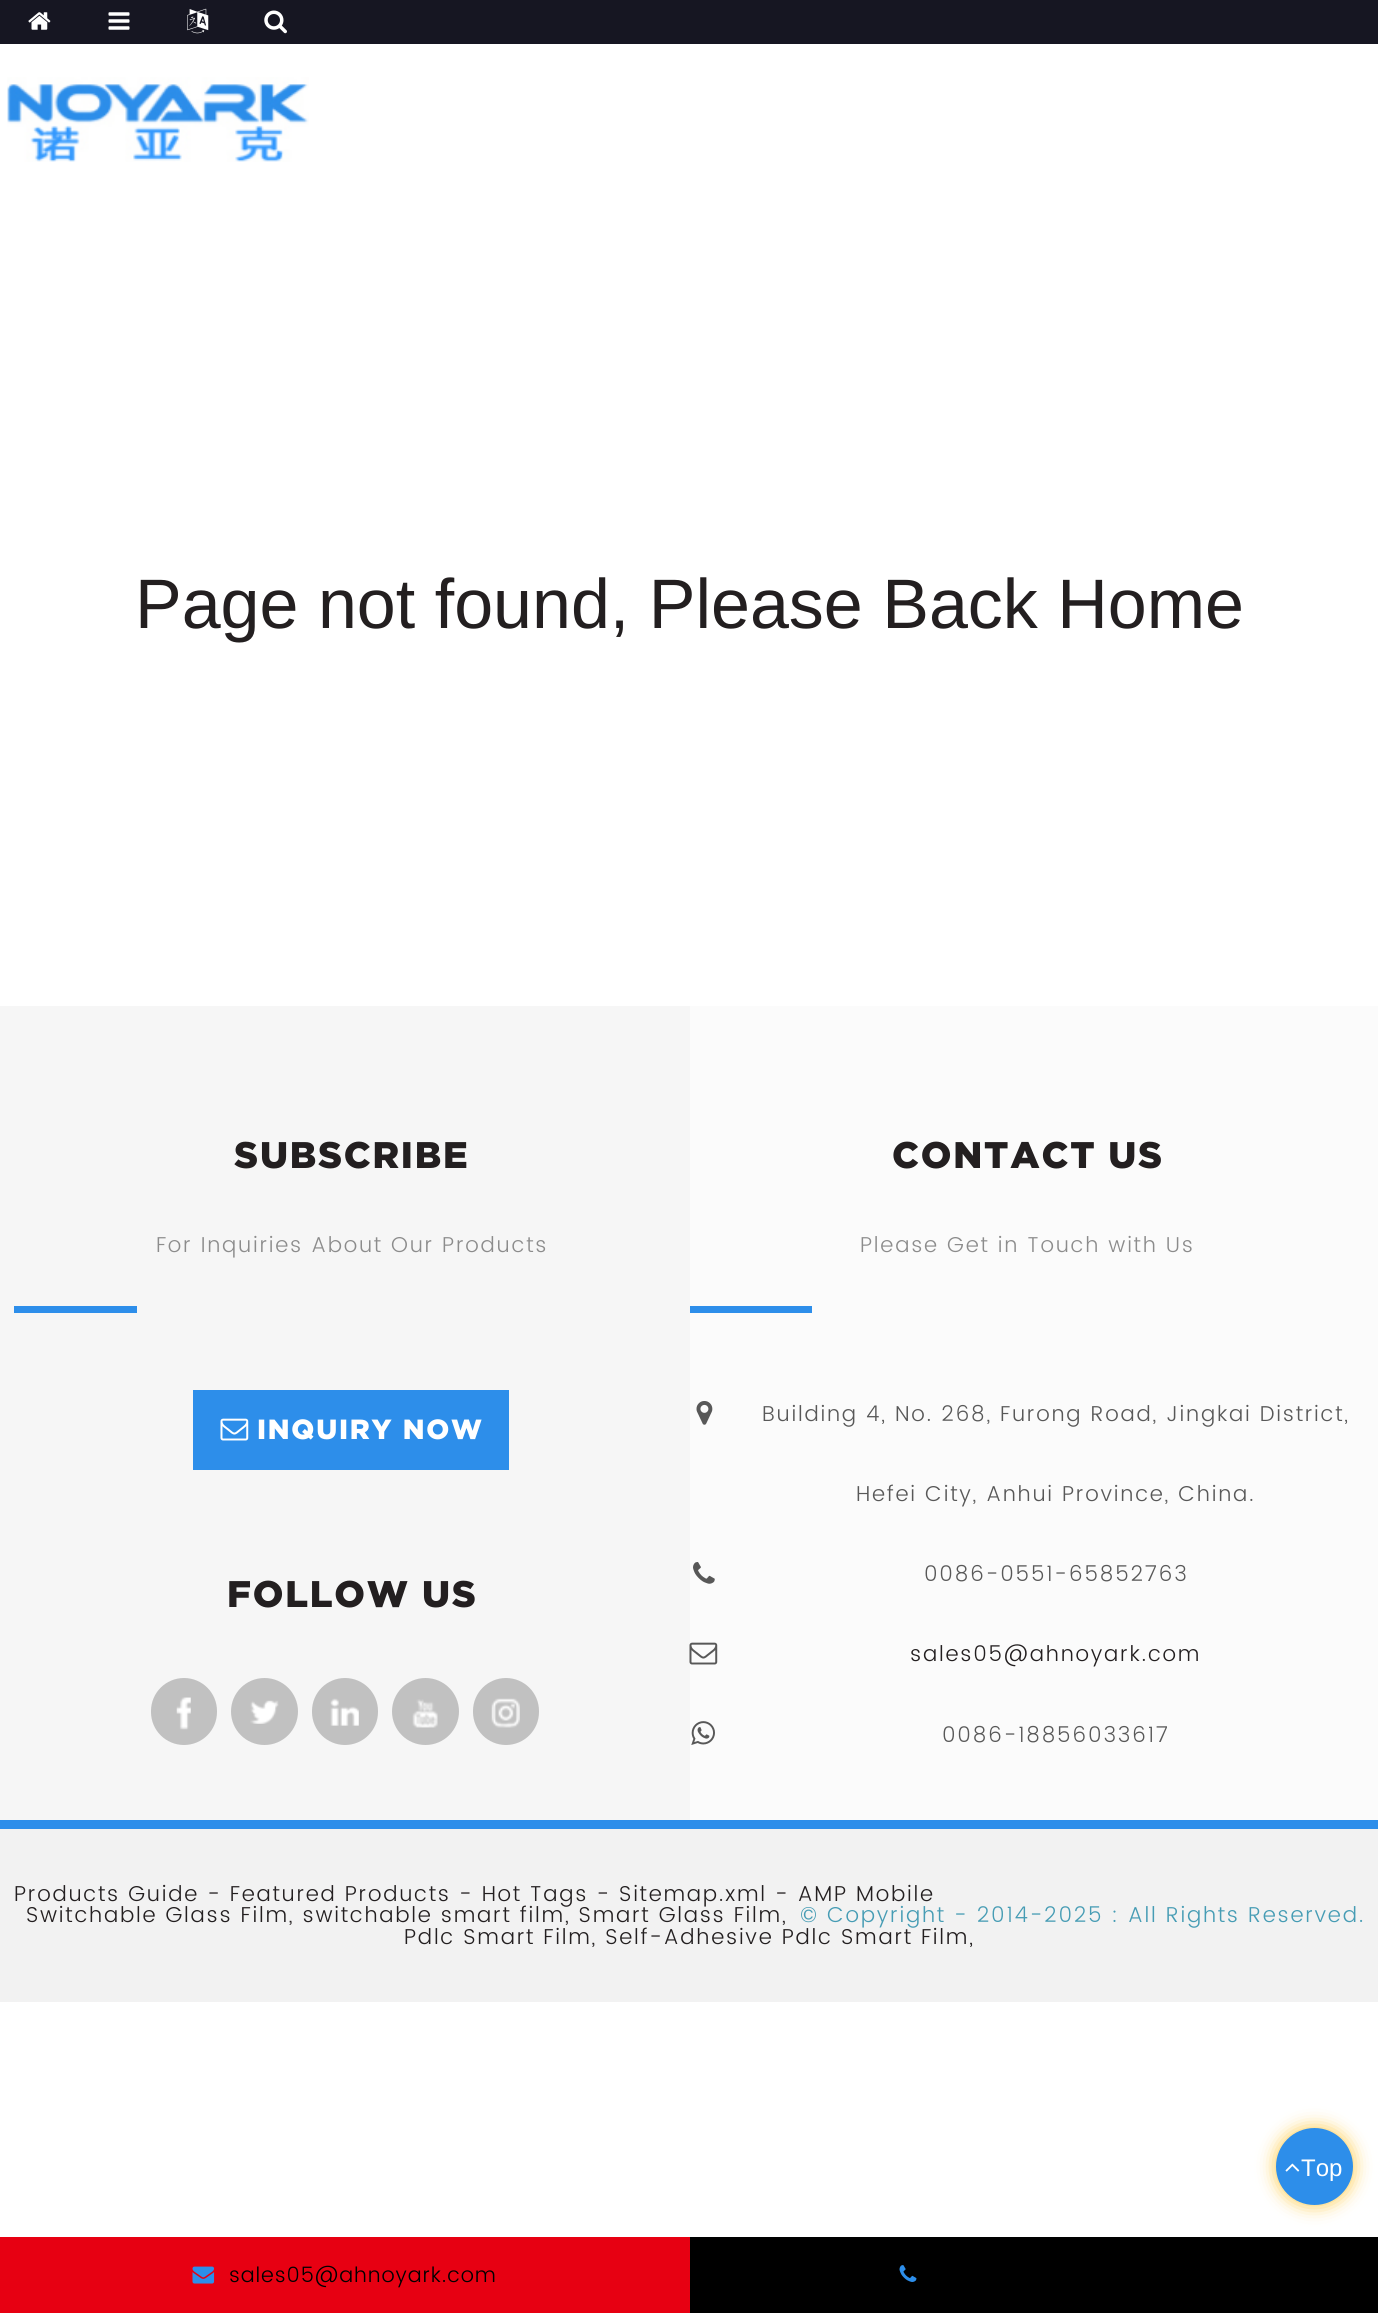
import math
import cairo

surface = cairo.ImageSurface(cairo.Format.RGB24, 1378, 2313)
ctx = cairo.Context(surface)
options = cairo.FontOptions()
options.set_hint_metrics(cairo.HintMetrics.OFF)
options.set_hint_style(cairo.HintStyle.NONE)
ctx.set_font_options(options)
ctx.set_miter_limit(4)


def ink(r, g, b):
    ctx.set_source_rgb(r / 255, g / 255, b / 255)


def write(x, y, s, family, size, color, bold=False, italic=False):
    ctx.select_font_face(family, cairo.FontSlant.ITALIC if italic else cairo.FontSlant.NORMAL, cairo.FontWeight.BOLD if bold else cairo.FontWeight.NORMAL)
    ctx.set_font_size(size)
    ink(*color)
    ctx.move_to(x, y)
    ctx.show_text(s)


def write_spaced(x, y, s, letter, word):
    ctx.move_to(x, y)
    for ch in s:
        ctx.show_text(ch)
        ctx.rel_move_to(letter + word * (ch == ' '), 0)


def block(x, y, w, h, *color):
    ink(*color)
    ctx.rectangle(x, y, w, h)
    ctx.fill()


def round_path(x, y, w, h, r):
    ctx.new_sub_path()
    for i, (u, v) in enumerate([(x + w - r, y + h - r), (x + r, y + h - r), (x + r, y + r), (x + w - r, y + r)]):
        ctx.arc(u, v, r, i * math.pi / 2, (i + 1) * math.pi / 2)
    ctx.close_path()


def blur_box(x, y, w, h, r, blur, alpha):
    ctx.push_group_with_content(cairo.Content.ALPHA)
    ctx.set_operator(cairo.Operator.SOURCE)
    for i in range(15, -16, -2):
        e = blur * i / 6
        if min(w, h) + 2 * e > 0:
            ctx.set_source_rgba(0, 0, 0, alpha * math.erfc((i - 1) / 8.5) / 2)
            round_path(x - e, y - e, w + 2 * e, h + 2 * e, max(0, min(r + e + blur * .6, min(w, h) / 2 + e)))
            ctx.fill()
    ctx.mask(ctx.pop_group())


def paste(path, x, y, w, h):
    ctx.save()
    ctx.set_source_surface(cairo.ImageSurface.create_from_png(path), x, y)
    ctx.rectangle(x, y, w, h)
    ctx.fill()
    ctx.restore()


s1 = dict(family="Liberation Sans", size=70, color=(35, 31, 32))
s2 = dict(family="Liberation Sans", size=24, color=(255, 255, 255))

ink(255, 255, 255)
ctx.paint()
block(0, 0, 1378, 44, 22, 22, 34)
paste("pic1.png", 28, 12, 23, 18)
paste("pic2.png", 108, 12, 22, 18)
paste("pic3.png", 187, 8, 22, 26)
paste("pic4.png", 264, 10, 23, 24)
paste("pic5.png", 7, 77, 302, 85)
write(135, 628, "Page not found, Please Back Home", **s1)
block(0, 1006, 690, 814, 246, 246, 246)
block(690, 1006, 688, 814, 251, 251, 251)
ctx.select_font_face("Gotham Black")
ctx.set_font_size(37)
ink(35, 31, 32)
write_spaced(234, 1168, "SUBSCRIBE", 1.75, 0)
ctx.select_font_face("Poppins Light")
ctx.set_font_size(21.55)
ink(140, 140, 140)
write_spaced(156, 1252, "For Inquiries About Our Products", 1.75, 0)
block(14, 1306, 123, 7, 45, 142, 234)
block(193, 1390, 316, 80, 45, 142, 234)
paste("pic6.png", 220, 1418, 29, 23)
ctx.select_font_face("Gotham Black")
ctx.set_font_size(27.75)
ink(255, 255, 255)
write_spaced(257, 1439, "INQUIRY NOW", 1.75, 0)
ctx.set_font_size(37)
ink(35, 31, 32)
write_spaced(227, 1607, "FOLLOW US", 1.75, 0)
ink(193, 193, 193)
round_path(151, 1678, 66, 67, 33)
ctx.fill()
paste("pic7.png", 176, 1697, 15, 33)
ctx.arc(264.5, 1711.5, 33.5, 0, 2 * math.pi)
ctx.fill()
paste("pic8.png", 250, 1700, 29, 24)
round_path(312, 1678, 66, 67, 33)
ctx.fill()
paste("pic9.png", 330, 1698, 29, 28)
ctx.arc(425.5, 1711.5, 33.5, 0, 2 * math.pi)
ctx.fill()
paste("pic10.png", 412, 1699, 26, 29)
round_path(473, 1678, 66, 67, 33)
ctx.fill()
paste("pic11.png", 491, 1698, 29, 30)
ink(35, 31, 32)
write_spaced(892, 1168, "CONTACT US", 1.75, 0)
ctx.select_font_face("Poppins Light")
ctx.set_font_size(21.55)
ink(140, 140, 140)
write_spaced(860, 1252, "Please Get in Touch with Us", 1.75, 0)
block(690, 1306, 122, 7, 45, 142, 234)
paste("pic12.png", 696, 1401, 17, 24)
ink(88, 88, 88)
write_spaced(762, 1421, "Building 4, No. 268, Furong Road, Jingkai District,", 1.75, 0)
write_spaced(856, 1501, "Hefei City, Anhui Province, China.", 1.75, 0)
paste("pic13.png", 693, 1562, 22, 22)
write_spaced(924, 1581, "0086-0551-65852763", 1.75, 0)
paste("pic14.png", 689, 1642, 29, 23)
ink(35, 31, 32)
write_spaced(910, 1661, "sales05@ahnoyark.com", 1.75, 0)
paste("pic15.png", 691, 1721, 24, 24)
ink(88, 88, 88)
write_spaced(942, 1742, "0086-18856033617", 1.75, 0)
block(0, 1829, 1378, 173, 242, 242, 242)
block(0, 1820, 1378, 9, 45, 142, 234)
ink(35, 31, 32)
write_spaced(14, 1901, "Products Guide - Featured Products - Hot Tags - Sitemap.xml - AMP Mobile", 1.75, 0)
write_spaced(26, 1922, "Switchable Glass Film, switchable smart film, Smart Glass Film,", 1.75, 0)
ink(70, 156, 180)
write_spaced(800, 1922, "© Copyright - 2014-2025 : All Rights Reserved.", 1.75, 0)
ink(35, 31, 32)
write_spaced(404, 1944, "Pdlc Smart Film, Self-Adhesive Pdlc Smart Film,", 1.75, 0)
ink(255, 183, 0)
blur_box(1276, 2128, 77, 77, 38.5, 9, 0.75)
ink(45, 142, 234)
ctx.arc(1314.5, 2166.5, 38.5, 0, 2 * math.pi)
ctx.fill()
paste("pic16.png", 1285, 2163, 15, 9)
write(1301, 2176, "Top", **s2)
block(0, 2237, 690, 76, 231, 0, 18)
paste("pic17.png", 192, 2266, 23, 18)
ctx.select_font_face("Poppins Light")
ctx.set_font_size(21)
ink(0, 0, 0)
write_spaced(229, 2282, "sales05@ahnoyark.com", 0.9, 0)
block(690, 2237, 688, 76, 0, 0, 0)
paste("pic18.png", 899, 2265, 18, 17)
surface.write_to_png("screenshot.png")
